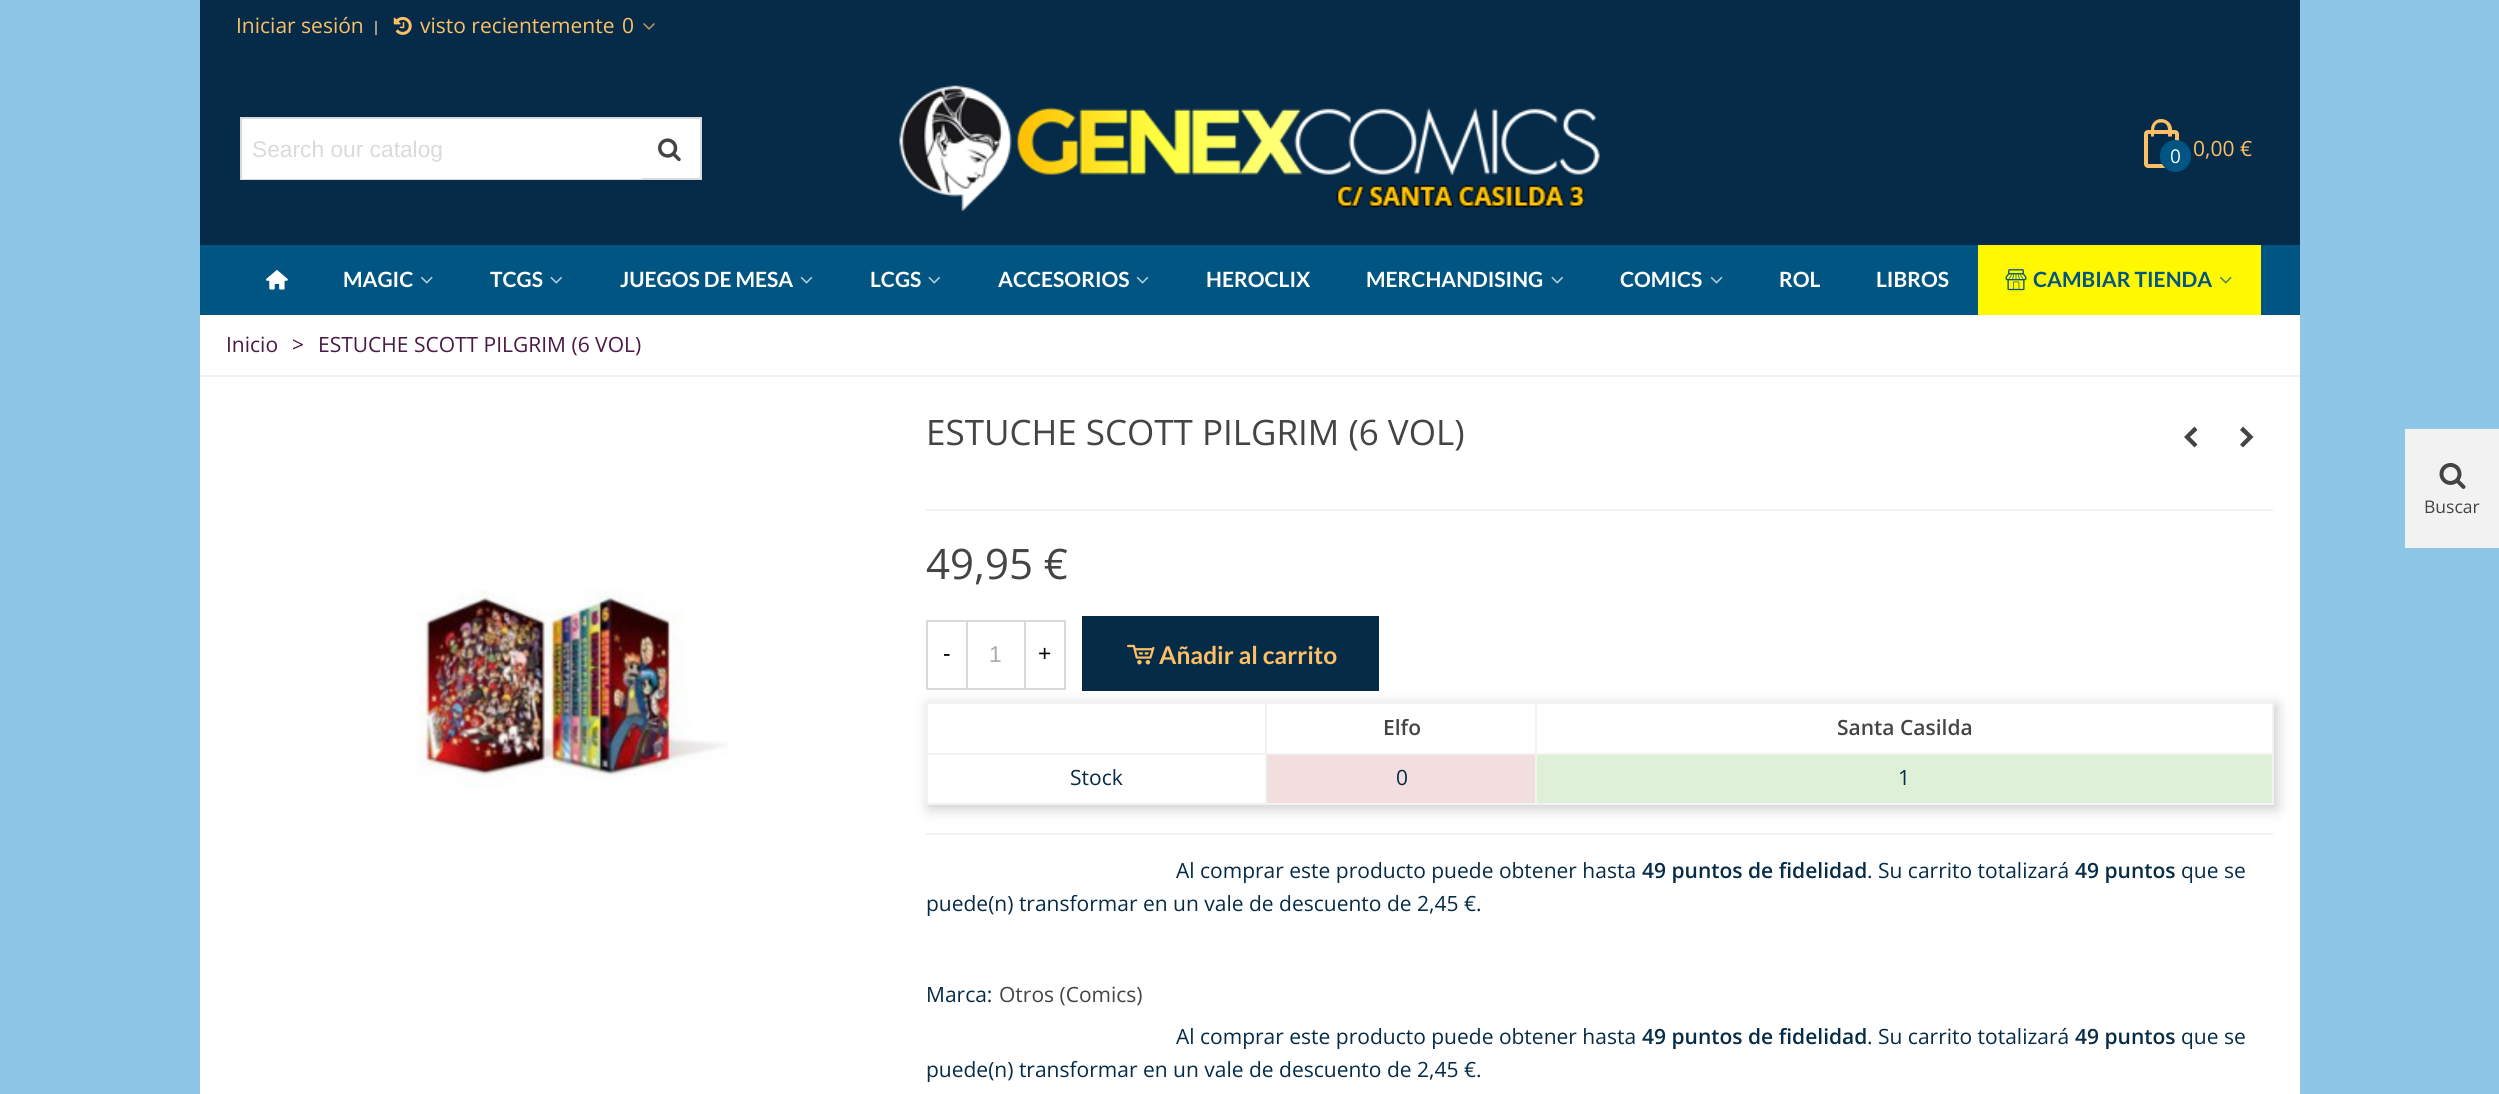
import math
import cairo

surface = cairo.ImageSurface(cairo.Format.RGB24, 2499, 1094)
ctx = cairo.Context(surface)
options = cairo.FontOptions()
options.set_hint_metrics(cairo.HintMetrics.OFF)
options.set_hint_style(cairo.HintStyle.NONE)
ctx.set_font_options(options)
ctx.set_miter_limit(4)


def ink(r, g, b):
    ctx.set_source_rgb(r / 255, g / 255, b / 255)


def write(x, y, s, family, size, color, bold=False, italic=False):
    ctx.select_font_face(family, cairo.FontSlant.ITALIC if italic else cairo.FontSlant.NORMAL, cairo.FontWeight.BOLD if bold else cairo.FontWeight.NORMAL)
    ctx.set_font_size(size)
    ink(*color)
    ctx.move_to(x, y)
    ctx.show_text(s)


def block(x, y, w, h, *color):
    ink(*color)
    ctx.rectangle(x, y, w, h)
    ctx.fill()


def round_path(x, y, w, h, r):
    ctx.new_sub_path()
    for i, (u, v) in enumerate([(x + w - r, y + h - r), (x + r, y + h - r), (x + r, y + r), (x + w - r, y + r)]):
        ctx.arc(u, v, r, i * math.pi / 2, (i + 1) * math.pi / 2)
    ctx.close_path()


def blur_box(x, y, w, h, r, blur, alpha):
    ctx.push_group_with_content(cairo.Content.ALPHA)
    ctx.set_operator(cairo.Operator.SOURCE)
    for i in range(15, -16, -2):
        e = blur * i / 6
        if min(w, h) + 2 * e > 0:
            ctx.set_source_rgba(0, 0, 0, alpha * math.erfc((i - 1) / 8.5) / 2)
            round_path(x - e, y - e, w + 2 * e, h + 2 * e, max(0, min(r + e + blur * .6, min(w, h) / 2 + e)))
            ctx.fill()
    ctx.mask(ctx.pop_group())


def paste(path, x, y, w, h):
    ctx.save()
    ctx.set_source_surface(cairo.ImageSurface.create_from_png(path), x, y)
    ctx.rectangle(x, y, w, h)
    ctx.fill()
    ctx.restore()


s1 = dict(family="Open Sans", size=21, color=(253, 192, 102))
s2 = dict(family="Liberation Sans", size=22.75, color=(218, 218, 218))
s3 = dict(family="Open Sans", size=19, color=(255, 255, 255))
s4 = dict(family="Lato", size=21, color=(255, 255, 255), bold=True)
s5 = dict(family="Lato", size=21, color=(1, 85, 131), bold=True)
s6 = dict(family="Open Sans", size=21, color=(74, 25, 70))
s7 = dict(family="Open Sans", size=35, color=(68, 68, 68))
s8 = dict(family="Open Sans", size=42, color=(68, 68, 68))
s9 = dict(family="Liberation Sans", size=22.75, color=(0, 0, 0))
s10 = dict(family="Liberation Sans", size=22.75, color=(172, 170, 166))
s11 = dict(family="Lato", size=24.5, color=(253, 192, 102), bold=True)
s12 = dict(family="Open Sans SemiBold", size=21, color=(68, 68, 68))
s13 = dict(family="Open Sans", size=21, color=(5, 43, 71))
s14 = dict(family="Open Sans SemiBold", size=21, color=(5, 43, 71))
s15 = dict(family="Open Sans", size=21, color=(68, 68, 68))
s16 = dict(family="Open Sans", size=17.5, color=(68, 68, 68))

ink(141, 198, 230)
ctx.paint()
block(200, 315, 2100, 779, 255, 255, 255)
block(200, 0, 2100, 245, 5, 43, 72)
write(236, 33, "Iniciar sesión", **s1)
block(375, 21, 2, 14, 153, 153, 153)
paste("pic1.png", 393, 16, 19, 19)
write(420, 33, "visto recientemente", **s1)
write(622, 33, "0", **s1)
paste("pic2.png", 643, 23, 12, 7)
block(642, 119, 58, 59, 255, 255, 255)
ctx.rectangle(241, 118, 460, 61)
ink(217, 217, 217)
ctx.stroke()
block(242, 119, 400, 60, 255, 255, 255)
write(252, 157, "Search our catalog", **s2)
paste("pic3.png", 658, 138, 23, 24)
paste("pic4.png", 899, 85, 701, 127)
round_path(2146, 132, 31, 34, 2)
ink(253, 192, 102)
ctx.set_line_width(4)
ctx.stroke()
ctx.set_fill_rule(cairo.FillRule.EVEN_ODD)
ctx.new_path()
ctx.move_to(2161, 119)
ctx.curve_to(2167, 119, 2172, 123.5, 2172, 129.5)
ctx.line_to(2172, 136.5)
ctx.line_to(2151, 136.5)
ctx.line_to(2151, 129.5)
ctx.curve_to(2151, 123.5, 2155.5, 119, 2161, 119)
ctx.close_path()
ctx.move_to(2161, 122.5)
ctx.curve_to(2169.5, 122.5, 2168, 131, 2168, 136.5)
ctx.line_to(2154, 136.5)
ctx.curve_to(2154, 131, 2153, 122.5, 2161, 122.5)
ctx.close_path()
ctx.fill()
ink(1, 85, 131)
round_path(2162, 142, 27, 28, 13.5)
ctx.fill_preserve()
ctx.stroke()
write(2170, 163, "0", **s3)
write(2193, 156, "0,00 €", **s1)
block(200, 245, 2100, 70, 1, 85, 131)
paste("pic5.png", 266, 269, 22, 21)
write(343, 287, "MAGIC", **s4)
paste("pic6.png", 421, 276, 12, 8)
write(490, 287, "TCGS", **s4)
paste("pic7.png", 550, 276, 12, 8)
write(620, 287, "JUEGOS DE MESA", **s4)
paste("pic8.png", 800, 276, 13, 8)
write(870, 287, "LCGS", **s4)
paste("pic7.png", 928, 276, 12, 8)
write(998, 287, "ACCESORIOS", **s4)
paste("pic8.png", 1136, 276, 13, 8)
write(1206, 287, "HEROCLIX", **s4)
write(1366, 287, "MERCHANDISING", **s4)
paste("pic7.png", 1551, 276, 12, 8)
write(1620, 287, "COMICS", **s4)
paste("pic8.png", 1710, 276, 13, 8)
write(1779, 287, "ROL", **s4)
write(1876, 287, "LIBROS", **s4)
block(1978, 245, 283, 70, 255, 248, 0)
paste("pic9.png", 2005, 269, 22, 22)
write(2033, 287, "CAMBIAR TIENDA", **s5)
paste("pic10.png", 2220, 276, 12, 8)
block(200, 375, 2100, 2, 242, 242, 242)
write(226, 352, "Inicio", **s6)
write(292, 352, ">", **s6)
write(318, 352, "ESTUCHE SCOTT PILGRIM (6 VOL)", **s6)
paste("pic11.png", 416, 588, 313, 201)
write(926, 445, "ESTUCHE SCOTT PILGRIM (6 VOL)", **s7)
ctx.set_fill_rule(cairo.FillRule.WINDING)
ctx.new_path()
ctx.move_to(2184, 437)
ctx.line_to(2194.5, 426.5)
ctx.line_to(2197.5, 430)
ctx.line_to(2190, 437)
ctx.line_to(2197.5, 444.5)
ctx.line_to(2194.5, 447.5)
ctx.close_path()
ctx.fill()
ctx.new_path()
ctx.move_to(2240, 444.5)
ctx.line_to(2247.5, 437)
ctx.line_to(2240, 430)
ctx.line_to(2243, 426.5)
ctx.line_to(2253.5, 437)
ctx.line_to(2243, 447.5)
ctx.close_path()
ctx.fill()
block(926, 509, 1347, 2, 242, 242, 242)
write(926, 579, "49,95 €", **s8)
ctx.save()
ctx.set_fill_rule(cairo.FillRule.EVEN_ODD)
ctx.new_path()
ctx.move_to(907, 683)
ctx.line_to(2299, 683)
ctx.line_to(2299, 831)
ctx.line_to(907, 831)
ctx.close_path()
ctx.move_to(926, 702)
ctx.line_to(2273, 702)
ctx.line_to(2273, 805)
ctx.line_to(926, 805)
ctx.close_path()
ctx.clip()
ink(0, 0, 0)
blur_box(929, 705, 1348, 104, 0, 7, 0.2)
ctx.restore()
ctx.rectangle(927, 621, 40, 68)
ink(217, 217, 217)
ctx.set_line_width(2)
ctx.stroke()
write(943, 661, "-", **s9)
ctx.rectangle(967, 621, 58, 68)
ink(217, 217, 217)
ctx.stroke()
write(989, 662, "1", **s10)
ctx.rectangle(1025, 621, 40, 68)
ink(217, 217, 217)
ctx.stroke()
write(1038, 661, "+", **s9)
block(1082, 616, 297, 75, 5, 43, 71)
paste("pic12.png", 1127, 644, 28, 21)
write(1159, 664, "Añadir al carrito", **s11)
block(926, 702, 1347, 2, 242, 242, 242)
block(2272, 702, 2, 103, 242, 242, 242)
block(926, 803, 1347, 2, 242, 242, 242)
block(926, 702, 2, 103, 242, 242, 242)
block(1535, 753, 738, 2, 242, 242, 242)
block(1535, 753, 2, 52, 242, 242, 242)
block(1265, 753, 272, 2, 242, 242, 242)
block(1265, 753, 2, 52, 242, 242, 242)
block(926, 753, 341, 2, 242, 242, 242)
block(1265, 702, 2, 52, 242, 242, 242)
write(1383, 735, "Elfo", **s12)
block(1535, 702, 2, 52, 242, 242, 242)
write(1837, 735, "Santa Casilda", **s12)
write(1070, 785, "Stock", **s13)
block(1267, 755, 268, 48, 242, 222, 222)
write(1396, 785, "0", **s13)
block(1537, 755, 735, 48, 223, 240, 216)
write(1898, 785, "1", **s13)
block(926, 833, 1347, 2, 242, 242, 242)
write(1176, 878, "Al comprar este producto puede obtener hasta", **s13)
write(1642, 878, "49 puntos de fidelidad", **s14)
write(1867, 878, ". Su carrito totalizará", **s13)
write(2075, 878, "49 puntos", **s14)
write(2181, 878, "que se", **s13)
write(926, 911, "puede(n) transformar en un vale de descuento de 2,45 €.", **s13)
write(926, 1002, "Marca:", **s13)
write(999, 1002, "Otros (Comics)", **s15)
write(1176, 1044, "Al comprar este producto puede obtener hasta", **s13)
write(1642, 1044, "49 puntos de fidelidad", **s14)
write(1867, 1044, ". Su carrito totalizará", **s13)
write(2075, 1044, "49 puntos", **s14)
write(2181, 1044, "que se", **s13)
write(926, 1077, "puede(n) transformar en un vale de descuento de 2,45 €.", **s13)
block(2405, 429, 94, 119, 242, 242, 242)
paste("pic13.png", 2439, 462, 27, 27)
write(2424, 513, "Buscar", **s16)
surface.write_to_png("screenshot.png")
